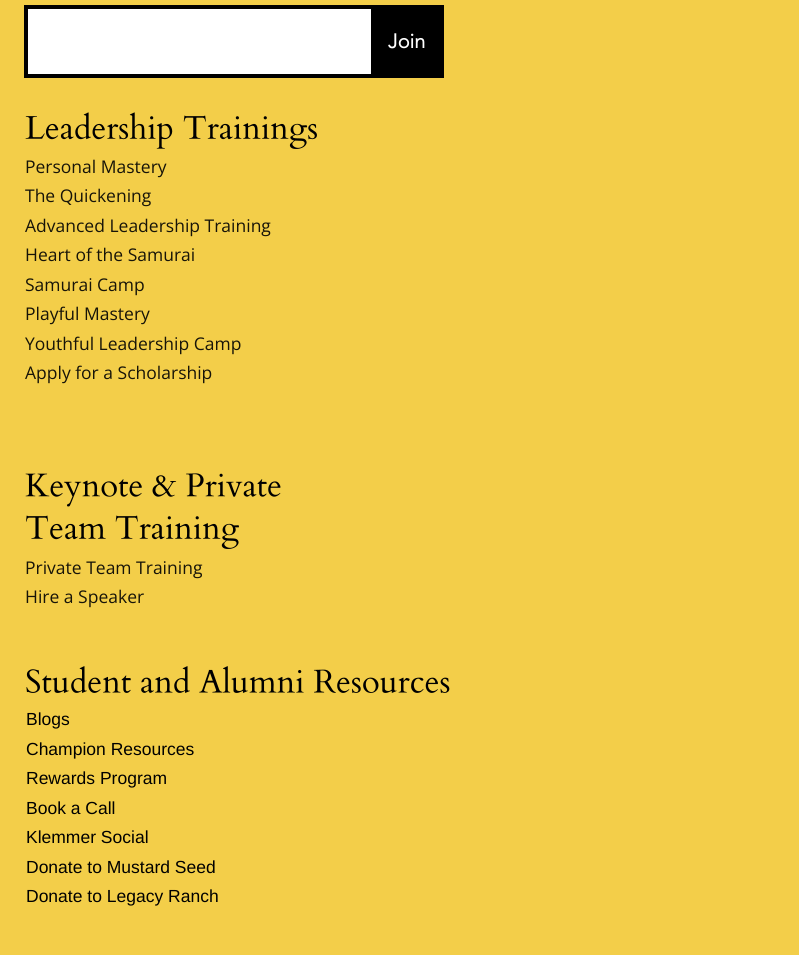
import math
import cairo

surface = cairo.ImageSurface(cairo.Format.RGB24, 799, 955)
ctx = cairo.Context(surface)
options = cairo.FontOptions()
options.set_hint_metrics(cairo.HintMetrics.OFF)
options.set_hint_style(cairo.HintStyle.NONE)
ctx.set_font_options(options)
ctx.set_miter_limit(4)


def ink(r, g, b):
    ctx.set_source_rgb(r / 255, g / 255, b / 255)


def write(x, y, s, family, size, color, bold=False, italic=False):
    ctx.select_font_face(family, cairo.FontSlant.ITALIC if italic else cairo.FontSlant.NORMAL, cairo.FontWeight.BOLD if bold else cairo.FontWeight.NORMAL)
    ctx.set_font_size(size)
    ink(*color)
    ctx.move_to(x, y)
    ctx.show_text(s)


def block(x, y, w, h, *color):
    ink(*color)
    ctx.rectangle(x, y, w, h)
    ctx.fill()


def paste(path, x, y, w, h):
    ctx.save()
    ctx.set_source_surface(cairo.ImageSurface.create_from_png(path), x, y)
    ctx.rectangle(x, y, w, h)
    ctx.fill()
    ctx.restore()


s1 = dict(family="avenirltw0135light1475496", size=20, color=(255, 255, 255), bold=True)
s2 = dict(family="Open Sans", size=17.5, color=(23, 20, 8))
s3 = dict(family="Liberation Sans", size=17.5, color=(0, 0, 0))

ink(243, 206, 73)
ctx.paint()
block(28, 9, 343, 65, 255, 255, 255)
ctx.rectangle(26, 7, 416, 69)
ink(0, 0, 0)
ctx.set_line_width(4)
ctx.stroke()
block(371, 9, 69, 65, 0, 0, 0)
write(388, 48, "Join", **s1)
paste("pic1.png", 25, 112, 292, 37)
write(25, 173, "Personal Mastery", **s2)
write(25, 202, "The Quickening", **s2)
write(25, 232, "Advanced Leadership Training", **s2)
write(25, 261, "Heart of the Samurai", **s2)
write(25, 291, "Samurai Camp", **s2)
write(25, 320, "Playful Mastery", **s2)
write(25, 350, "Youthful Leadership Camp", **s2)
write(25, 379, "Apply for a Scholarship", **s2)
paste("pic2.png", 25, 473, 256, 34)
paste("pic3.png", 26, 515, 213, 34)
write(25, 574, "Private Team Training", **s2)
write(25, 603, "Hire a Speaker", **s2)
paste("pic4.png", 26, 666, 424, 27)
write(26, 725, "Blogs", **s3)
write(26, 755, "Champion Resources", **s3)
write(26, 784, "Rewards Program", **s3)
write(26, 814, "Book a Call", **s3)
write(26, 843, "Klemmer Social", **s3)
write(26, 873, "Donate to Mustard Seed", **s3)
write(26, 902, "Donate to Legacy Ranch", **s3)
surface.write_to_png("screenshot.png")
